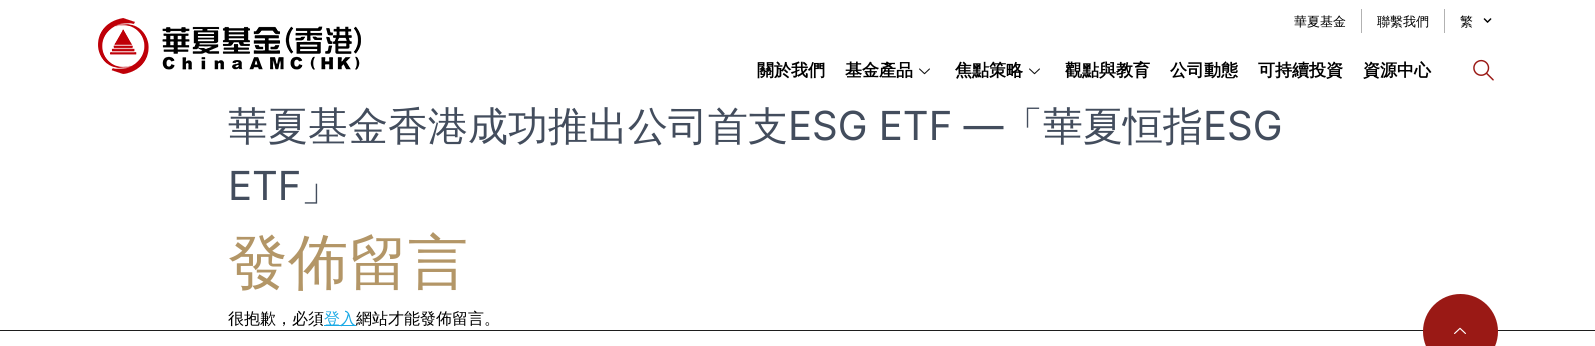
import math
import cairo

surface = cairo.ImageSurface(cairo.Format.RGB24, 1595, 346)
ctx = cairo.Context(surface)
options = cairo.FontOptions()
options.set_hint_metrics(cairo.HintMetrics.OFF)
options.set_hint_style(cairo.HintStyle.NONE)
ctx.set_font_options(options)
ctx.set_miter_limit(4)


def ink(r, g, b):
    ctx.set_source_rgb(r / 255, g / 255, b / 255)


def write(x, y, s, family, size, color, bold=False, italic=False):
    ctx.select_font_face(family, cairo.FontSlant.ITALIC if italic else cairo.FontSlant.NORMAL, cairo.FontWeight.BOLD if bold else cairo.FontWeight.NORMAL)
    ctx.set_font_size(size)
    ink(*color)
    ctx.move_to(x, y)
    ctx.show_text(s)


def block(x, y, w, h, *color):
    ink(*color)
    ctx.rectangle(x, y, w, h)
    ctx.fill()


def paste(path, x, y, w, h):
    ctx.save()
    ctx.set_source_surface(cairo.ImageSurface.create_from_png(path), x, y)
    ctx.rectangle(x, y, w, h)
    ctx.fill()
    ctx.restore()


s1 = dict(family="WenQuanYi Zen Hei Medium", size=13, color=(0, 0, 0))
s2 = dict(family="WenQuanYi Zen Hei", size=17, color=(0, 0, 0), bold=True)
s3 = dict(family="WenQuanYi Zen Hei Medium", size=40, color=(67, 77, 93))
s4 = dict(family="Inter", size=40, color=(67, 77, 93))
s5 = dict(family="WenQuanYi Zen Hei Medium", size=60, color=(179, 150, 103))
s6 = dict(family="WenQuanYi Zen Hei Medium", size=16, color=(0, 0, 0))
s7 = dict(family="WenQuanYi Zen Hei Medium", size=16, color=(25, 169, 229))

ink(255, 255, 255)
ctx.paint()
paste("pic1.png", 98, 18, 263, 56)
block(1361, 9, 1, 24, 178, 178, 178)
write(1294, 26, "華夏基金", **s1)
block(1444, 9, 1, 24, 178, 178, 178)
write(1377, 26, "聯繫我們", **s1)
write(1460, 26, "繁", **s1)
paste("pic2.png", 1483, 18, 9, 5)
write(757, 76, "關於我們", **s2)
write(845, 76, "基金產品", **s2)
paste("pic3.png", 919, 68, 11, 7)
write(955, 76, "焦點策略", **s2)
paste("pic3.png", 1029, 68, 11, 7)
write(1065, 76, "觀點與教育", **s2)
write(1170, 76, "公司動態", **s2)
write(1258, 76, "可持續投資", **s2)
write(1363, 76, "資源中心", **s2)
paste("pic4.png", 1473, 59, 21, 22)
write(228, 140, "華夏基金香港成功推出公司首支", **s3)
write(788, 140, "ESG ETF —", **s4)
write(1003, 140, "「華夏恒指", **s3)
write(1203, 140, "ESG", **s4)
write(228, 200, "ETF", **s4)
write(301, 200, "」", **s3)
write(228, 283, "發佈留言", **s5)
write(228, 324, "很抱歉，必須", **s6)
block(324, 325, 32, 1, 25, 169, 229)
write(324, 324, "登入", **s7)
write(356, 324, "網站才能發佈留言。", **s6)
block(0, 330, 1595, 1, 30, 30, 30)
ink(154, 25, 21)
ctx.new_path()
ctx.arc(1460.5, 331.5, 37.5, 0, 2 * math.pi)
ctx.fill()
paste("pic5.png", 1454, 327, 12, 7)
surface.write_to_png("screenshot.png")
